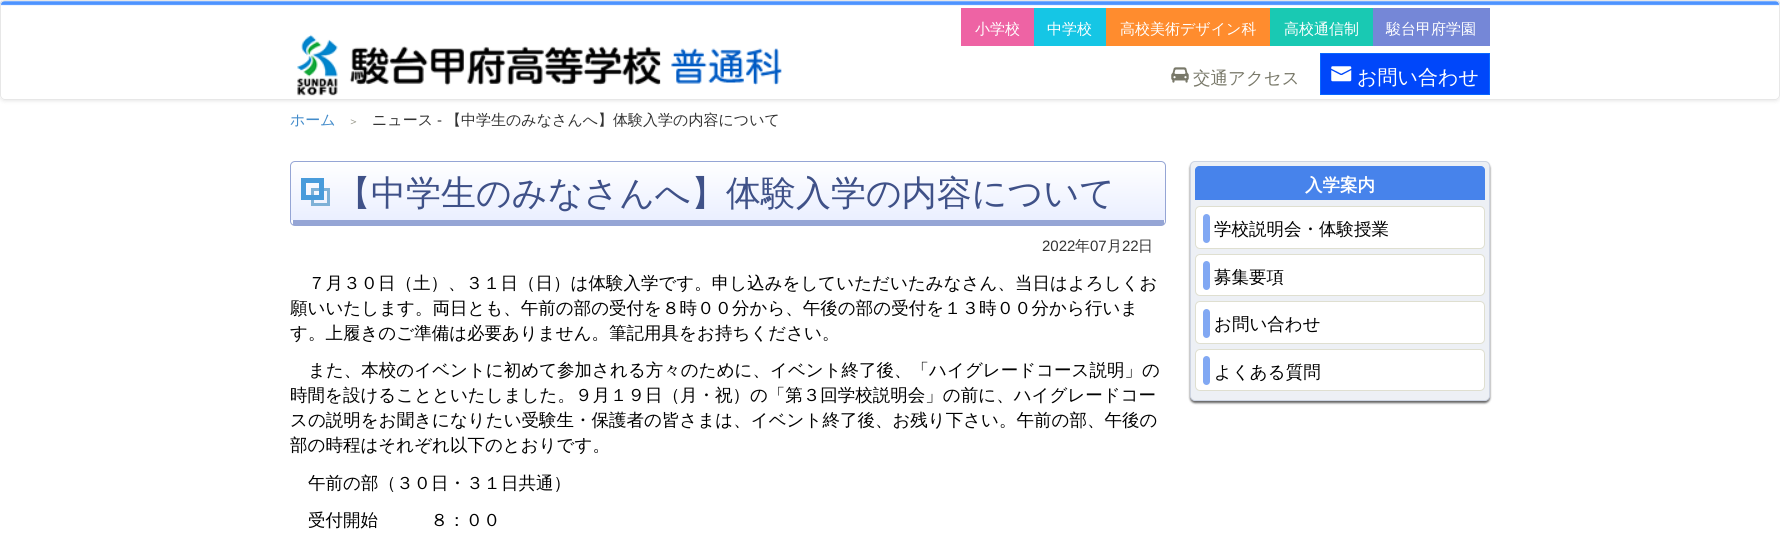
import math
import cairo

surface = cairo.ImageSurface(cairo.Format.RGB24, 1780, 537)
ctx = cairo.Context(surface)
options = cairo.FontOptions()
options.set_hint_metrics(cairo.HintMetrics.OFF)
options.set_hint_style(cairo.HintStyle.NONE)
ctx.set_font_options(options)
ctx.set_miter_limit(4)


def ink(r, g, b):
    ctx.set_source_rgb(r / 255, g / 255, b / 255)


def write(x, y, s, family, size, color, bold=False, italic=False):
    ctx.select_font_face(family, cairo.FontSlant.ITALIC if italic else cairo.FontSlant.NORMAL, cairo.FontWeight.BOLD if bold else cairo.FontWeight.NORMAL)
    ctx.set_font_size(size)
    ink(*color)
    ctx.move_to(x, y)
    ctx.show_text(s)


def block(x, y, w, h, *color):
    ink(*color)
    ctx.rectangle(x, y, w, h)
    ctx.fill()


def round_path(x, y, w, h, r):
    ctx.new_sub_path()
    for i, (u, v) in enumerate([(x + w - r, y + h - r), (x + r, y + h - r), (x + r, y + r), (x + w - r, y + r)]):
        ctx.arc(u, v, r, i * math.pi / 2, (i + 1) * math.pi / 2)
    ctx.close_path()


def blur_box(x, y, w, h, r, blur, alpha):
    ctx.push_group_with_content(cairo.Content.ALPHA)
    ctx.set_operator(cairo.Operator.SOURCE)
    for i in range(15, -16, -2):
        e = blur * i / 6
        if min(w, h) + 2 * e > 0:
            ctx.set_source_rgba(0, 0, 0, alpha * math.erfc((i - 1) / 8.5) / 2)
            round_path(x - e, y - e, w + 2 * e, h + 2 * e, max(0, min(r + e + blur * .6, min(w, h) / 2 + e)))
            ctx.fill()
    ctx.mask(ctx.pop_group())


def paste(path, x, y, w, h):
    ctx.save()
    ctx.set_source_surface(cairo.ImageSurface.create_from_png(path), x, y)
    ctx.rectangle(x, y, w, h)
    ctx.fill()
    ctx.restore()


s1 = dict(family="WenQuanYi Zen Hei Medium", size=15, color=(255, 255, 255))
s2 = dict(family="WenQuanYi Zen Hei Medium", size=17.5, color=(121, 121, 106))
s3 = dict(family="WenQuanYi Zen Hei Medium", size=20, color=(255, 255, 255))
s4 = dict(family="WenQuanYi Zen Hei Medium", size=15, color=(66, 139, 202))
s5 = dict(family="WenQuanYi Zen Hei Medium", size=11, color=(138, 138, 123))
s6 = dict(family="WenQuanYi Zen Hei Medium", size=15, color=(51, 51, 51))
s7 = dict(family="Liberation Sans", size=15, color=(51, 51, 51))
s8 = dict(family="WenQuanYi Zen Hei Medium", size=35, color=(63, 81, 136))
s9 = dict(family="WenQuanYi Zen Hei Medium", size=17.5, color=(0, 0, 0))
s10 = dict(family="WenQuanYi Zen Hei", size=17.5, color=(255, 255, 255), bold=True)

ink(255, 255, 255)
ctx.paint()
ctx.save()
ctx.set_fill_rule(cairo.FillRule.EVEN_ODD)
ctx.new_path()
ctx.move_to(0, 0)
ctx.line_to(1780, 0)
ctx.line_to(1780, 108)
ctx.line_to(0, 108)
ctx.close_path()
ctx.move_to(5, 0)
ctx.line_to(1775, 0)
ctx.curve_to(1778, 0, 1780, 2, 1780, 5)
ctx.line_to(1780, 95)
ctx.curve_to(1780, 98, 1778, 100, 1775, 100)
ctx.line_to(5, 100)
ctx.curve_to(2, 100, 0, 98, 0, 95)
ctx.line_to(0, 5)
ctx.curve_to(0, 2, 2, 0, 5, 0)
ctx.close_path()
ctx.clip()
ink(0, 0, 0)
blur_box(-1, -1, 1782, 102, 6, 2, 0.1)
ctx.restore()
paste("pic1.png", 0, 1, 1780, 98)
round_path(0.5, 0.5, 1779, 99, 4.5)
ink(231, 231, 231)
ctx.set_line_width(1)
ctx.stroke()
paste("pic2.png", 297, 34, 485, 62)
block(961, 8, 73, 38, 238, 99, 164)
write(975, 34, "小学校", **s1)
block(1034, 8, 72, 38, 21, 198, 229)
write(1047, 34, "中学校", **s1)
block(1106, 8, 164, 38, 255, 140, 46)
write(1120, 34, "高校美術デザイン科", **s1)
block(1270, 8, 103, 38, 25, 201, 179)
write(1284, 34, "高校通信制", **s1)
block(1373, 8, 117, 38, 117, 135, 215)
write(1386, 34, "駿台甲府学園", **s1)
paste("pic3.png", 1171, 67, 18, 16)
write(1193, 84, "交通アクセス", **s2)
ink(0, 71, 250)
ctx.rectangle(1320.5, 53.5, 169, 41)
ctx.fill_preserve()
ink(9, 104, 255)
ctx.stroke()
paste("pic4.png", 1331, 66, 21, 16)
write(1357, 84, "お問い合わせ", **s3)
write(290, 125, "ホーム", **s4)
write(348, 125, "＞", **s5)
write(372, 125, "ニュース", **s6)
write(437, 125, "-", **s7)
write(446, 125, "【中学生のみなさんへ】体験入学の内容について", **s6)
gradient = cairo.LinearGradient(728, 162, 728, 220)
gradient.add_color_stop_rgba(0, 1, 1, 1, 1)
gradient.add_color_stop_rgba(1, 0.918, 0.937, 1, 1)
ctx.set_source(gradient)
ctx.new_path()
ctx.move_to(295, 162)
ctx.line_to(1161, 162)
ctx.curve_to(1163, 162, 1165, 164, 1165, 166)
ctx.line_to(1165, 220)
ctx.line_to(291, 220)
ctx.line_to(291, 166)
ctx.curve_to(291, 164, 293, 162, 295, 162)
ctx.close_path()
ctx.fill()
round_path(290.5, 161.5, 875, 64, 4.5)
ink(149, 165, 213)
ctx.stroke()
block(293, 220, 871, 5, 149, 165, 213)
ctx.rectangle(312.5, 189.5, 16, 15)
ink(126, 177, 215)
ctx.set_line_width(3)
ctx.stroke()
ctx.rectangle(303.5, 180.5, 18, 17)
ink(72, 155, 219)
ctx.set_line_width(5)
ctx.stroke()
write(336, 205, "【中学生のみなさんへ】体験入学の内容について", **s8)
write(1042, 251, "2022", **s7)
write(1075, 251, "年", **s6)
write(1090, 251, "07", **s7)
write(1107, 251, "月", **s6)
write(1122, 251, "22", **s7)
write(1138, 251, "日", **s6)
write(308, 289, "７月３０日（土）、３１日（日）は体験入学です。申し込みをしていただいたみなさん、当日はよろしくお", **s9)
write(290, 314, "願いいたします。両日とも、午前の部の受付を８時００分から、午後の部の受付を１３時００分から行いま", **s9)
write(290, 339, "す。上履きのご準備は必要ありません。筆記用具をお持ちください。", **s9)
write(308, 376, "また、本校のイベントに初めて参加される方々のために、イベント終了後、「ハイグレードコース説明」の", **s9)
write(290, 401, "時間を設けることといたしました。９月１９日（月・祝）の「第３回学校説明会」の前に、ハイグレードコー", **s9)
write(290, 426, "スの説明をお聞きになりたい受験生・保護者の皆さまは、イベント終了後、お残り下さい。午前の部、午後の", **s9)
write(290, 451, "部の時程はそれぞれ以下のとおりです。", **s9)
write(308, 489, "午前の部（３０日・３１日共通）", **s9)
write(308, 526, "受付開始　　　８：００", **s9)
ink(0, 0, 0)
blur_box(1190, 163, 300, 240, 5, 1, 0.6)
ink(237, 240, 245)
round_path(1190.5, 161.5, 299, 239, 4.5)
ctx.fill_preserve()
ink(205, 212, 226)
ctx.set_line_width(1)
ctx.stroke()
ink(71, 131, 235)
ctx.new_path()
ctx.move_to(1199, 166)
ctx.line_to(1481, 166)
ctx.curve_to(1483, 166, 1485, 168, 1485, 170)
ctx.line_to(1485, 200)
ctx.line_to(1195, 200)
ctx.line_to(1195, 170)
ctx.curve_to(1195, 168, 1197, 166, 1199, 166)
ctx.close_path()
ctx.fill()
write(1305, 191, "入学案内", **s10)
round_path(1195.5, 206.5, 289, 42, 4.5)
ctx.fill_preserve()
ink(223, 223, 208)
ctx.stroke()
ink(129, 168, 243)
round_path(1203, 214, 7, 29, 3.5)
ctx.fill()
write(1214, 235, "学校説明会・体験授業", **s9)
ink(255, 255, 255)
round_path(1195.5, 254.5, 289, 41, 4.5)
ctx.fill_preserve()
ink(223, 223, 208)
ctx.stroke()
ink(129, 168, 243)
round_path(1203, 261, 7, 29, 3.5)
ctx.fill()
write(1214, 283, "募集要項", **s9)
ink(255, 255, 255)
round_path(1195.5, 301.5, 289, 42, 4.5)
ctx.fill_preserve()
ink(223, 223, 208)
ctx.stroke()
ink(129, 168, 243)
round_path(1203, 309, 7, 29, 3.5)
ctx.fill()
write(1214, 330, "お問い合わせ", **s9)
ink(255, 255, 255)
round_path(1195.5, 349.5, 289, 41, 4.5)
ctx.fill_preserve()
ink(223, 223, 208)
ctx.stroke()
ink(129, 168, 243)
round_path(1203, 356, 7, 29, 3.5)
ctx.fill()
write(1214, 378, "よくある質問", **s9)
surface.write_to_png("screenshot.png")
